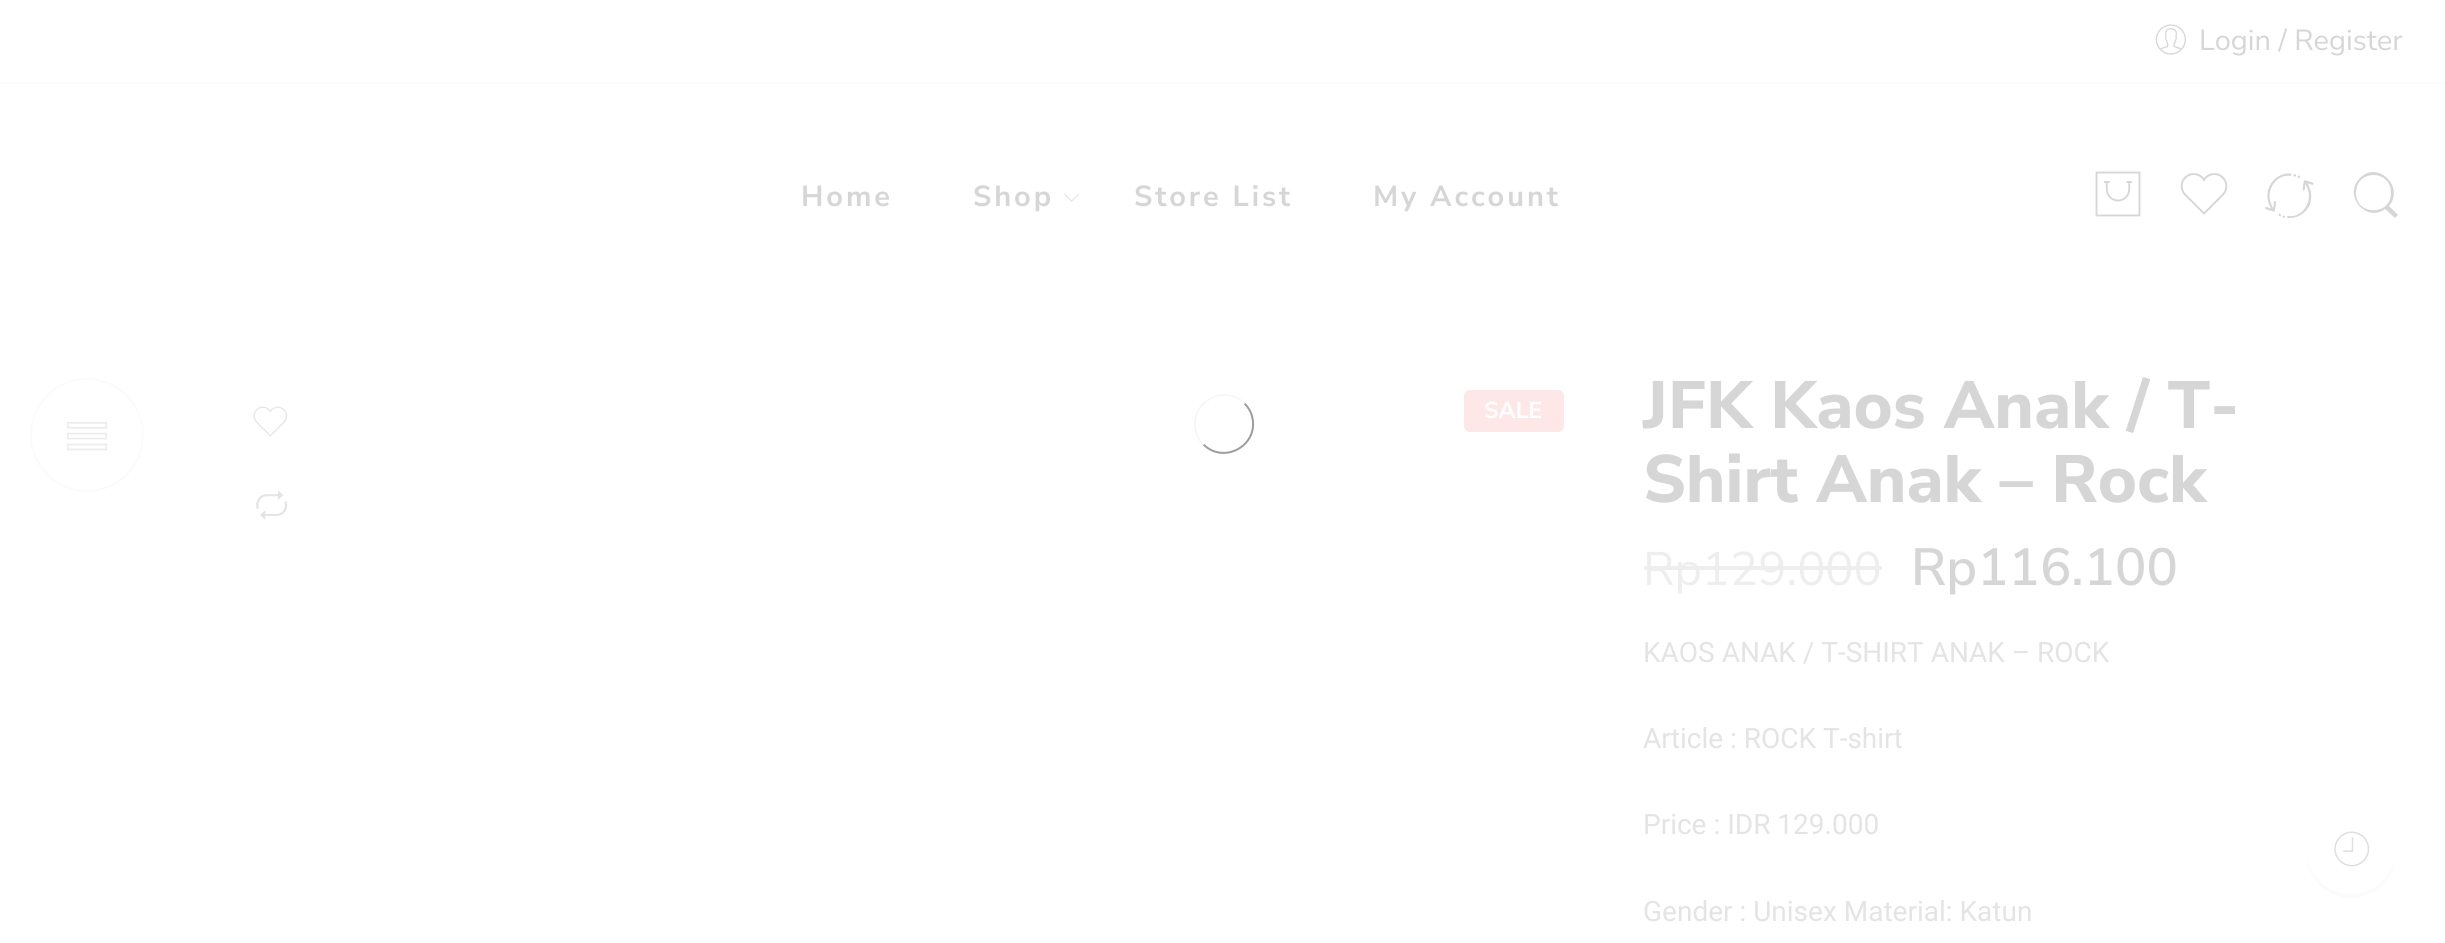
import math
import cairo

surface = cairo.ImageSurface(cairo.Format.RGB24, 2445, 943)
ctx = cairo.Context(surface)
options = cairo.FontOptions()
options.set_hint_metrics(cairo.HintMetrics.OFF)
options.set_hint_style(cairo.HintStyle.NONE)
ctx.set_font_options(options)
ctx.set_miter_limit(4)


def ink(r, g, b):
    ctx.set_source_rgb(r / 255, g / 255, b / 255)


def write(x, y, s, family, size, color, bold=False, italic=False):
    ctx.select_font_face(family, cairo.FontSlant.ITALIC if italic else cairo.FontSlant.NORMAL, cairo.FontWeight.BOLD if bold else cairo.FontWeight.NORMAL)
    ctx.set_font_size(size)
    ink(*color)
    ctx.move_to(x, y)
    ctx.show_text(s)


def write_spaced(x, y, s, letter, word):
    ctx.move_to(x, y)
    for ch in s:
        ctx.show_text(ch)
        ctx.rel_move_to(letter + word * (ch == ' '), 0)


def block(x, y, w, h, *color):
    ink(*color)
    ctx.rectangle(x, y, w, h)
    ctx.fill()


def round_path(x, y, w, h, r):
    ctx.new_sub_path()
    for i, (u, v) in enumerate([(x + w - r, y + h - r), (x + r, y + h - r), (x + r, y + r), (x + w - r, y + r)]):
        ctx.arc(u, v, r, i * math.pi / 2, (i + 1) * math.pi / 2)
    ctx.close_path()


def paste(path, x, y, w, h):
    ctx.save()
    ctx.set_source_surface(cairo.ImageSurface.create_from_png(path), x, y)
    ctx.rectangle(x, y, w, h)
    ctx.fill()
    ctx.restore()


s1 = dict(family="Nunito Sans", size=29, color=(214, 214, 214))
s2 = dict(family="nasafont", size=56, color=(214, 214, 214))
s3 = dict(family="Nunito Sans", size=23, color=(255, 255, 255), bold=True)
s4 = dict(family="nasafont", size=41, color=(228, 228, 228))
s5 = dict(family="Nunito Sans ExtraBold", size=66.75, color=(214, 214, 214))
s6 = dict(family="Nunito Sans", size=47, color=(238, 238, 238))
s7 = dict(family="Nunito Sans SemiBold", size=52.25, color=(214, 214, 214))
s8 = dict(family="Roboto", size=28, color=(228, 228, 228))

ink(255, 255, 255)
ctx.paint()
block(0, 82, 2445, 2, 251, 251, 251)
paste("pic1.png", 2155, 24, 31, 31)
write(2199, 50, "Login / Register", **s1)
ctx.select_font_face("Nunito Sans", cairo.FontSlant.NORMAL, cairo.FontWeight.BOLD)
write_spaced(801, 206, "Home", 2.9, 0)
write_spaced(973, 206, "Shop", 2.9, 0)
paste("pic2.png", 1064, 194, 15, 8)
write_spaced(1134, 206, "Store List", 2.9, 0)
write_spaced(1373, 206, "My Account", 2.9, 0)
paste("pic3.png", 2095, 171, 46, 46)
paste("pic4.png", 2180, 173, 48, 42)
write(2261, 227, "3", **s2)
ctx.new_path()
ctx.move_to(2398, 215)
ctx.line_to(2395, 218)
ctx.line_to(2385, 209)
ctx.curve_to(2367, 223, 2342, 196, 2360, 178)
ctx.curve_to(2378, 160, 2405, 187, 2389, 206)
ctx.close_path()
ctx.move_to(2356, 193)
ctx.curve_to(2356, 216, 2391, 216, 2391, 193)
ctx.curve_to(2391, 169, 2356, 169, 2356, 193)
ctx.close_path()
ctx.fill()
ctx.arc(87, 435, 56, 0, 2 * math.pi)
ink(251, 251, 251)
ctx.stroke()
paste("pic5.png", 67, 421, 41, 30)
ink(254, 231, 231)
round_path(1464, 390, 100, 42, 6)
ctx.fill()
write(1484, 418, "SALE", **s3)
paste("pic6.png", 253, 406, 35, 31)
write(251, 526, "\"", **s4)
write(1643, 428, "JFK Kaos Anak / T-", **s5)
write(1643, 502, "Shirt Anak – Rock", **s5)
write(1643, 585, "Rp129.000", **s6)
block(1644, 566, 238, 4, 238, 238, 238)
write(1911, 585, "Rp116.100", **s7)
write(1643, 662, "KAOS ANAK / T-SHIRT ANAK – ROCK", **s8)
write(1643, 748, "Article : ROCK T-shirt", **s8)
write(1643, 834, "Price : IDR 129.000", **s8)
write(1643, 921, "Gender : Unisex Material: Katun", **s8)
ctx.new_path()
ctx.move_to(1244.5, 403.5)
ctx.curve_to(1248.5, 407.5, 1251.5, 412.5, 1252.5, 418.5)
ctx.curve_to(1258, 446, 1223.5, 464.5, 1203.5, 444.5)
ink(157, 157, 157)
ctx.stroke()
ctx.new_path()
ctx.move_to(1203.5, 444.5)
ctx.curve_to(1199.5, 440.5, 1196.5, 435.5, 1195.5, 429.5)
ctx.curve_to(1190, 402, 1224.5, 383.5, 1244.5, 403.5)
ink(247, 247, 247)
ctx.stroke()
ctx.set_source_rgba(0.8, 0.8, 0.8, 0.08)
ctx.new_path()
ctx.move_to(2306, 851)
ctx.curve_to(2306, 861, 2308, 870, 2314, 878)
ctx.curve_to(2339, 916, 2398, 896, 2396, 851)
ctx.curve_to(2395, 875, 2375, 894, 2351, 894)
ctx.curve_to(2327, 894, 2307, 875, 2306, 851)
ctx.close_path()
ctx.fill()
paste("pic7.png", 2334, 831, 36, 36)
surface.write_to_png("screenshot.png")
